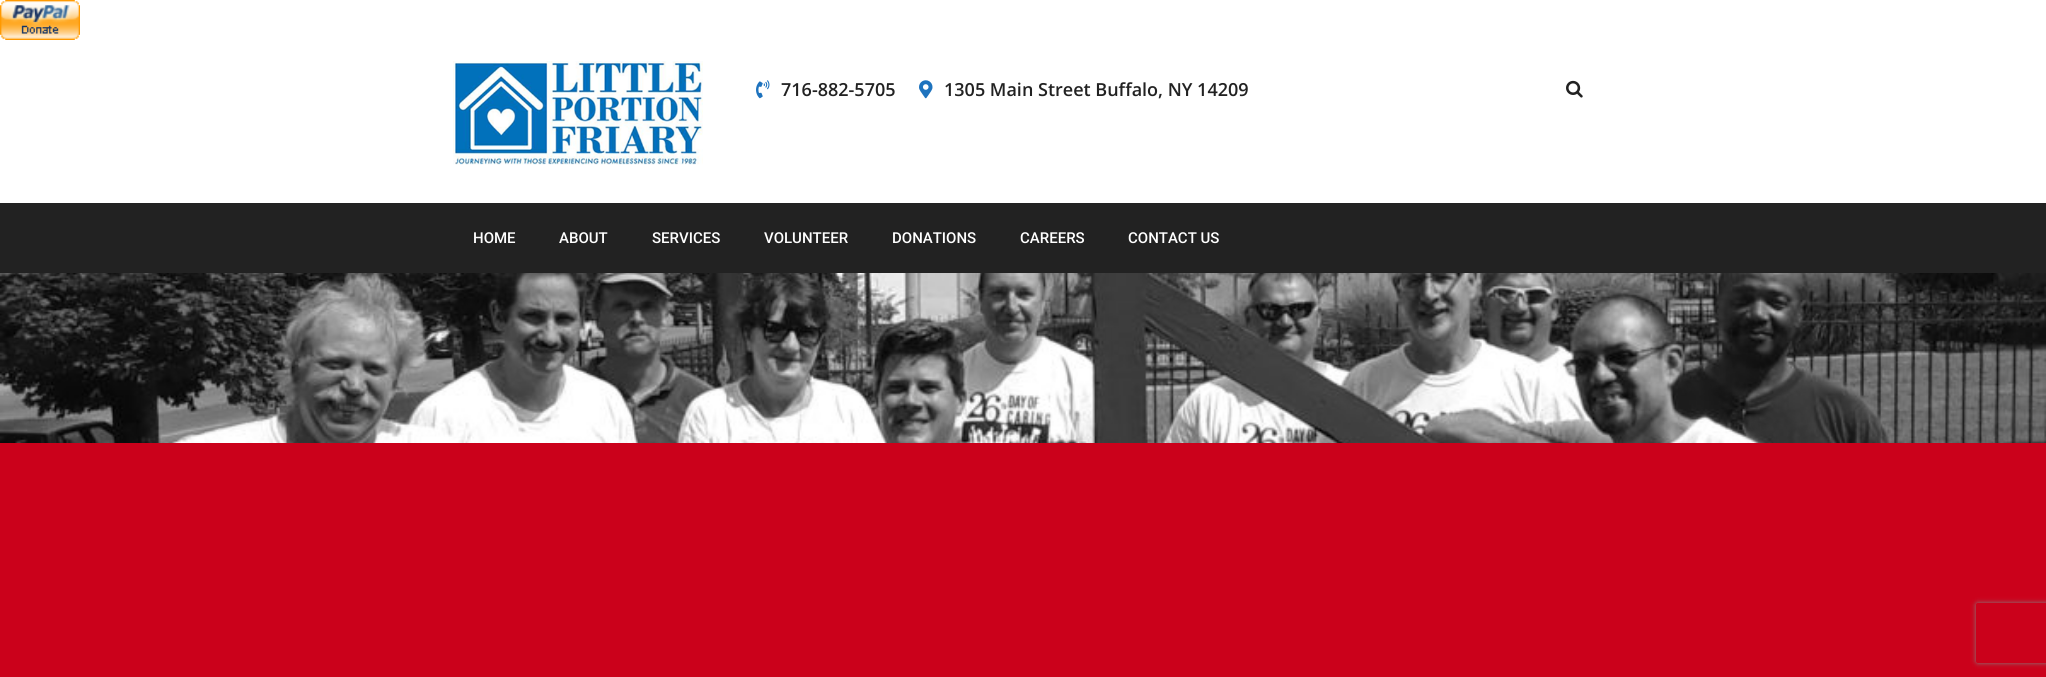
import math
import cairo

surface = cairo.ImageSurface(cairo.Format.RGB24, 2046, 677)
ctx = cairo.Context(surface)
options = cairo.FontOptions()
options.set_hint_metrics(cairo.HintMetrics.OFF)
options.set_hint_style(cairo.HintStyle.NONE)
ctx.set_font_options(options)
ctx.set_miter_limit(4)


def ink(r, g, b):
    ctx.set_source_rgb(r / 255, g / 255, b / 255)


def write(x, y, s, family, size, color, bold=False, italic=False):
    ctx.select_font_face(family, cairo.FontSlant.ITALIC if italic else cairo.FontSlant.NORMAL, cairo.FontWeight.BOLD if bold else cairo.FontWeight.NORMAL)
    ctx.set_font_size(size)
    ink(*color)
    ctx.move_to(x, y)
    ctx.show_text(s)


def block(x, y, w, h, *color):
    ink(*color)
    ctx.rectangle(x, y, w, h)
    ctx.fill()


def round_path(x, y, w, h, r):
    ctx.new_sub_path()
    for i, (u, v) in enumerate([(x + w - r, y + h - r), (x + r, y + h - r), (x + r, y + r), (x + w - r, y + r)]):
        ctx.arc(u, v, r, i * math.pi / 2, (i + 1) * math.pi / 2)
    ctx.close_path()


def blur_box(x, y, w, h, r, blur, alpha):
    ctx.push_group_with_content(cairo.Content.ALPHA)
    ctx.set_operator(cairo.Operator.SOURCE)
    for i in range(15, -16, -2):
        e = blur * i / 6
        if min(w, h) + 2 * e > 0:
            ctx.set_source_rgba(0, 0, 0, alpha * math.erfc((i - 1) / 8.5) / 2)
            round_path(x - e, y - e, w + 2 * e, h + 2 * e, max(0, min(r + e + blur * .6, min(w, h) / 2 + e)))
            ctx.fill()
    ctx.mask(ctx.pop_group())


def paste(path, x, y, w, h):
    ctx.save()
    ctx.set_source_surface(cairo.ImageSurface.create_from_png(path), x, y)
    ctx.rectangle(x, y, w, h)
    ctx.fill()
    ctx.restore()


s1 = dict(family="Open Sans SemiBold", size=18, color=(34, 34, 34))
s2 = dict(family="Roboto Medium", size=15, color=(255, 255, 255))

ink(255, 255, 255)
ctx.paint()
paste("pic1.png", 0, 0, 80, 40)
paste("pic2.png", 453, 61, 250, 104)
paste("pic3.png", 756, 80, 14, 19)
write(781, 96, "716-882-5705", **s1)
paste("pic4.png", 919, 80, 14, 19)
write(944, 96, "1305 Main Street Buffalo, NY 14209", **s1)
paste("pic5.png", 1566, 80, 17, 18)
block(0, 203, 2046, 70, 34, 34, 34)
write(473, 243, "HOME", **s2)
write(559, 243, "ABOUT", **s2)
write(652, 243, "SERVICES", **s2)
write(764, 243, "VOLUNTEER", **s2)
write(892, 243, "DONATIONS", **s2)
write(1020, 243, "CAREERS", **s2)
write(1128, 243, "CONTACT US", **s2)
paste("pic6.png", 0, 273, 2046, 170)
block(0, 443, 2046, 234, 203, 1, 27)
ctx.save()
ctx.set_fill_rule(cairo.FillRule.EVEN_ODD)
ctx.new_path()
ctx.move_to(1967, 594)
ctx.line_to(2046, 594)
ctx.line_to(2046, 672)
ctx.line_to(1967, 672)
ctx.close_path()
ctx.move_to(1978, 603)
ctx.line_to(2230, 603)
ctx.curve_to(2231, 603, 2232, 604, 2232, 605)
ctx.line_to(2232, 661)
ctx.curve_to(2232, 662, 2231, 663, 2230, 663)
ctx.line_to(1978, 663)
ctx.curve_to(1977, 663, 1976, 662, 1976, 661)
ctx.line_to(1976, 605)
ctx.curve_to(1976, 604, 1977, 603, 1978, 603)
ctx.close_path()
ctx.clip()
ink(128, 128, 128)
blur_box(1976, 603, 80, 60, 2, 2.5, 1)
ctx.restore()
surface.write_to_png("screenshot.png")
